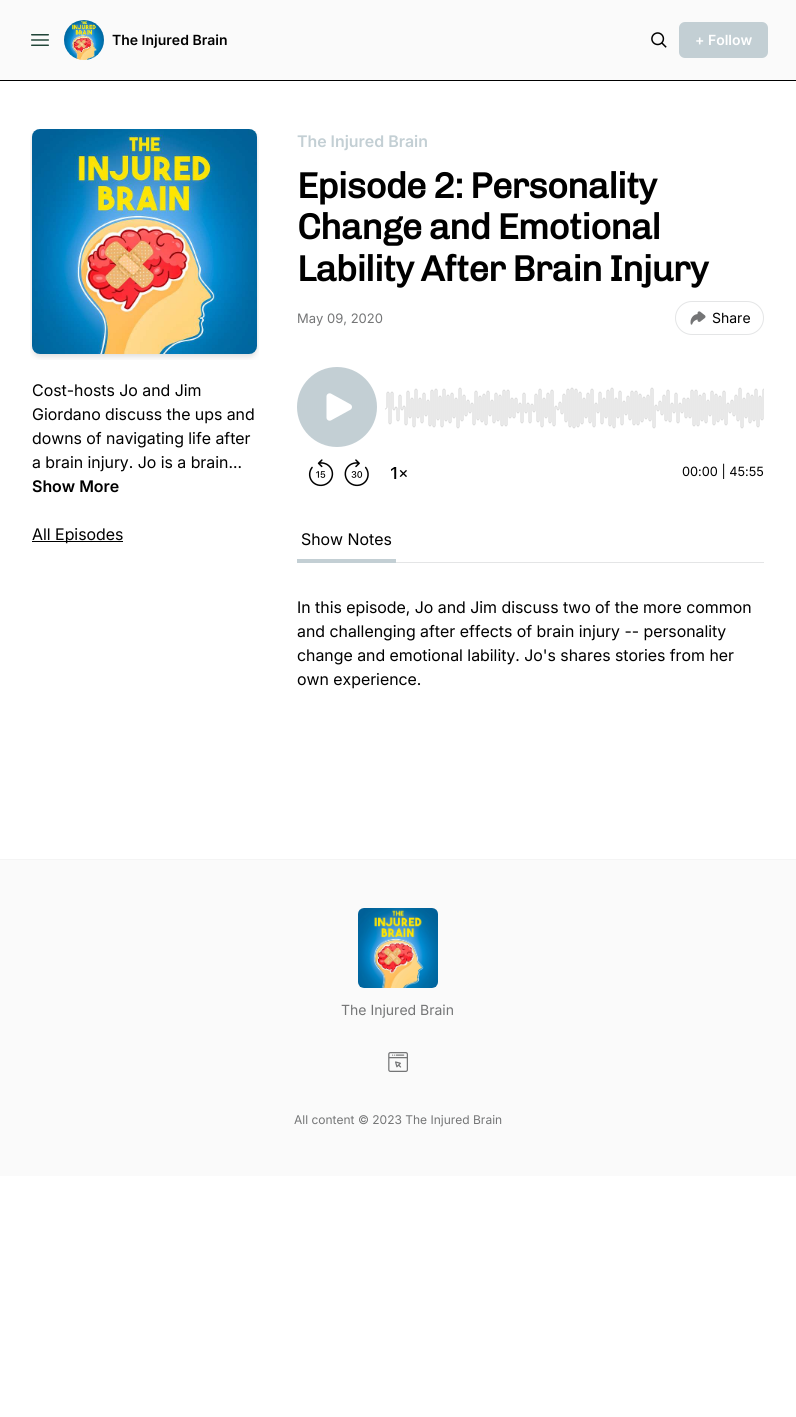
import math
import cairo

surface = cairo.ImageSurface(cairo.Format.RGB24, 796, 1417)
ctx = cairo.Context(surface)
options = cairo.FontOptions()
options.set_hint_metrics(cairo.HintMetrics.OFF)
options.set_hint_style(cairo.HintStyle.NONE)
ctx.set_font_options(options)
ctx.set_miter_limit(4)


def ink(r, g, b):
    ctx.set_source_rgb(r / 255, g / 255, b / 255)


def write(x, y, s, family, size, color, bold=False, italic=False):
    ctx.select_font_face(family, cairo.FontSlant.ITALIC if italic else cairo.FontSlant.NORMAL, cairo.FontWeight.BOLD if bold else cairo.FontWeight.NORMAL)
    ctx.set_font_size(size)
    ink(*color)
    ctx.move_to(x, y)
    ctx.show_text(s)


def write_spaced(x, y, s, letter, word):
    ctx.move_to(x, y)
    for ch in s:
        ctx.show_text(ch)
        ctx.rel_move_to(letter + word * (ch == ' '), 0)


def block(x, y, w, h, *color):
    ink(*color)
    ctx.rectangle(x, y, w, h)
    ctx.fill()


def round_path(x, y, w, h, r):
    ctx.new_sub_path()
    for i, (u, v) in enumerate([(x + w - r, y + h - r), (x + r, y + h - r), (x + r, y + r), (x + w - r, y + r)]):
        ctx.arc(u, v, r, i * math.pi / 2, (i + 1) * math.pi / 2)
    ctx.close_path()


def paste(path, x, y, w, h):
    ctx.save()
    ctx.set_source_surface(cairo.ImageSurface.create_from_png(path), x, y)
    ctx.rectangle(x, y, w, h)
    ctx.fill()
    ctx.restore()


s1 = dict(family="Inter SemiBold", size=14, color=(0, 0, 0))
s2 = dict(family="Inter SemiBold", size=14, color=(255, 255, 255))
s3 = dict(family="Inter", size=16, color=(0, 0, 0))
s4 = dict(family="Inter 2 SemiBold", size=16, color=(0, 0, 0))
s5 = dict(family="Inter 2 SemiBold", size=16, color=(195, 207, 212))
s6 = dict(family="Inter 2", size=13, color=(116, 117, 118))
s7 = dict(family="Inter 2", size=14, color=(0, 0, 0))
s8 = dict(family="Inter 2", size=12.75, color=(0, 0, 0))
s9 = dict(family="Inter 2", size=14, color=(116, 117, 118))
s10 = dict(family="Inter 2", size=12, color=(116, 117, 118))

ink(255, 255, 255)
ctx.paint()
block(0, 0, 796, 80, 250, 250, 250)
block(0, 80, 796, 1, 0, 0, 0)
paste("pic1.png", 31, 34, 18, 12)
paste("pic2.png", 64, 20, 40, 40)
write(112, 45, "The Injured Brain", **s1)
paste("pic3.png", 651, 32, 16, 16)
ink(195, 207, 212)
round_path(679, 22, 89, 36, 6)
ctx.fill()
write(695, 45, "+ Follow", **s2)
paste("pic4.png", 30, 129, 229, 231)
write(32, 396, "Cost-hosts Jo and Jim", **s3)
write(32, 420, "Giordano discuss the ups and", **s3)
write(32, 444, "downs of navigating life after", **s3)
write(32, 468, "a brain injury. Jo is a brain…", **s3)
write(32, 492, "Show More", **s4)
block(32, 541, 91, 1, 0, 0, 0)
write(32, 540, "All Episodes", **s3)
write(297, 147, "The Injured Brain", **s5)
ctx.select_font_face("Chivo", cairo.FontSlant.NORMAL, cairo.FontWeight.BOLD)
ctx.set_font_size(36)
ink(0, 0, 0)
write_spaced(297, 198, "Episode 2: Personality", -0.9, 0)
write_spaced(297, 239, "Change and Emotional", -0.9, 0)
write_spaced(297, 281, "Lability After Brain Injury", -0.9, 0)
write(297, 323, "May 09, 2020", **s6)
round_path(675.5, 301.5, 88, 33, 16.5)
ink(228, 229, 230)
ctx.set_line_width(1)
ctx.stroke()
paste("pic5.png", 690, 311, 16, 14)
write(712, 323, "Share", **s7)
paste("pic6.png", 308, 459, 26, 28)
paste("pic7.png", 344, 459, 25, 28)
paste("pic8.png", 391, 467, 16, 12)
ink(195, 207, 212)
ctx.arc(337, 407, 40, 0, 2 * math.pi)
ctx.fill()
paste("pic9.png", 326, 393, 26, 28)
paste("pic10.png", 385, 387, 379, 42)
write(682, 476, "00:00 | 45:55", **s8)
block(396, 562, 368, 1, 228, 229, 230)
block(297, 559, 99, 4, 195, 207, 212)
write(301, 545, "Show Notes", **s3)
write(297, 613, "In this episode, Jo and Jim discuss two of the more common", **s3)
write(297, 637, "and challenging after effects of brain injury -- personality", **s3)
write(297, 661, "change and emotional lability. Jo's shares stories from her", **s3)
write(297, 685, "own experience.", **s3)
block(0, 860, 796, 316, 250, 250, 250)
block(0, 859, 796, 1, 244, 244, 244)
paste("pic11.png", 358, 908, 80, 80)
write(341, 1015, "The Injured Brain", **s9)
paste("pic12.png", 388, 1052, 20, 20)
write(294, 1124, "All content © 2023 The Injured Brain", **s10)
surface.write_to_png("screenshot.png")
